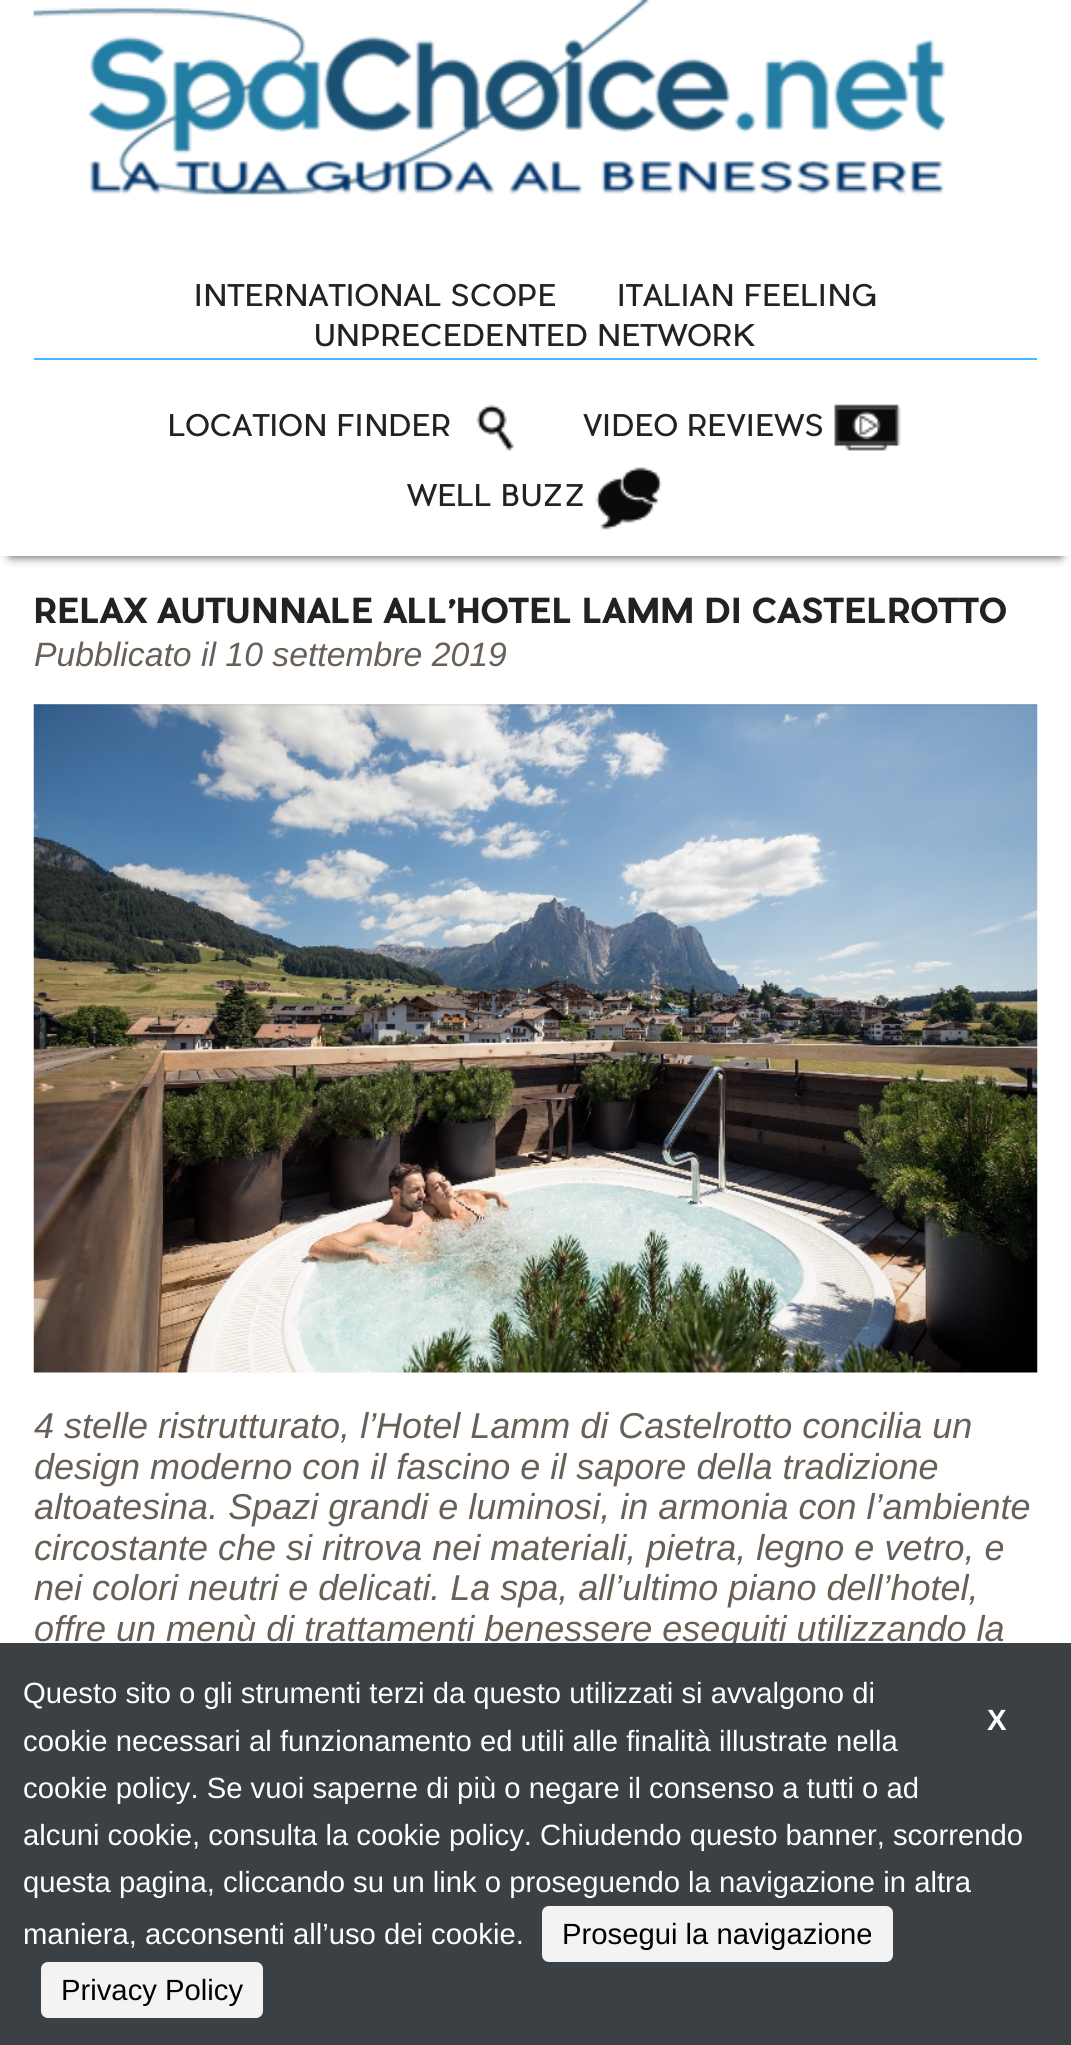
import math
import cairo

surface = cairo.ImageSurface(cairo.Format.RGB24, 1071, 2045)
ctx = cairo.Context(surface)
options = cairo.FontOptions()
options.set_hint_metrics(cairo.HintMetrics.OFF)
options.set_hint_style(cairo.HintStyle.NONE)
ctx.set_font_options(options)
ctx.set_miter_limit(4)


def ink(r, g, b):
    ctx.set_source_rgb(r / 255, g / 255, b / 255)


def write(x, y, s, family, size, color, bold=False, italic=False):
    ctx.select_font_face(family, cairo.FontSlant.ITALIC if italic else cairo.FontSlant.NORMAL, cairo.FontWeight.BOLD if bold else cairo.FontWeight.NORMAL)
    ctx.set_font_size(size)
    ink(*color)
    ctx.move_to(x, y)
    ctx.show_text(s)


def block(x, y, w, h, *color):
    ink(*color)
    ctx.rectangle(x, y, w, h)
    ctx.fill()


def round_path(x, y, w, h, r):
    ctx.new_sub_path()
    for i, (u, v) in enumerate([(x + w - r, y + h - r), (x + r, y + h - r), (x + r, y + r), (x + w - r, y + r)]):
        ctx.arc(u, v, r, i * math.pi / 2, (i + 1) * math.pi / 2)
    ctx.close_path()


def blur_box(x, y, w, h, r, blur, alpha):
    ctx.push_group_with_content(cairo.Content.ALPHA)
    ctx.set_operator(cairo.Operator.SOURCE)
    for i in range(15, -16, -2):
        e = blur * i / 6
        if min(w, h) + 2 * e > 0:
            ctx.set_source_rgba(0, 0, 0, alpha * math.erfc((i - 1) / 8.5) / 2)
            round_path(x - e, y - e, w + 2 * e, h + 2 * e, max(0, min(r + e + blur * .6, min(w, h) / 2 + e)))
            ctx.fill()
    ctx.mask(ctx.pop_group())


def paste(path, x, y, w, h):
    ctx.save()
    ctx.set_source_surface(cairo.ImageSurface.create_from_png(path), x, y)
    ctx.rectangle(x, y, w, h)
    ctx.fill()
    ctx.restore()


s1 = dict(family="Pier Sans", size=29.25, color=(34, 34, 34))
s2 = dict(family="Pier Sans", size=33.75, color=(34, 34, 34), bold=True)
s3 = dict(family="Liberation Sans", size=33.75, color=(104, 96, 87), italic=True)
s4 = dict(family="Liberation Sans", size=36, color=(104, 96, 87), italic=True)
s5 = dict(family="Liberation Sans", size=29.25, color=(255, 255, 255))
s6 = dict(family="Liberation Sans", size=29.25, color=(255, 255, 255), bold=True)
s7 = dict(family="Liberation Sans", size=29.25, color=(0, 0, 0))

ink(255, 255, 255)
ctx.paint()
ctx.save()
ctx.set_fill_rule(cairo.FillRule.EVEN_ODD)
ctx.new_path()
ctx.move_to(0, 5)
ctx.line_to(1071, 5)
ctx.line_to(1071, 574)
ctx.line_to(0, 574)
ctx.close_path()
ctx.move_to(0, 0)
ctx.line_to(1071, 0)
ctx.line_to(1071, 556)
ctx.line_to(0, 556)
ctx.close_path()
ctx.clip()
ink(0, 0, 0)
blur_box(11, 23, 1049, 533, 0, 5.5, 0.75)
ctx.restore()
paste("pic1.png", 33, 0, 912, 195)
block(34, 358, 1003, 2, 71, 183, 255)
write(194, 306, "INTERNATIONAL SCOPE", **s1)
write(617, 306, "ITALIAN FEELING", **s1)
write(314, 346, "UNPRECEDENTED NETWORK", **s1)
paste("pic2.png", 476, 404, 38, 47)
write(168, 436, "LOCATION FINDER", **s1)
paste("pic3.png", 834, 404, 67, 47)
write(583, 436, "VIDEO REVIEWS", **s1)
paste("pic4.png", 595, 467, 67, 63)
write(407, 506, "WELL BUZZ", **s1)
write(34, 623, "RELAX AUTUNNALE ALL'HOTEL LAMM DI CASTELROTTO", **s2)
write(34, 666, "Pubblicato il 10 settembre 2019", **s3)
paste("pic5.png", 33, 704, 1005, 669)
write(34, 1438, "4 stelle ristrutturato, l’Hotel Lamm di Castelrotto concilia un", **s4)
write(34, 1479, "design moderno con il fascino e il sapore della tradizione", **s4)
write(34, 1519, "altoatesina. Spazi grandi e luminosi, in armonia con l’ambiente", **s4)
write(34, 1560, "circostante che si ritrova nei materiali, pietra, legno e vetro, e", **s4)
write(34, 1600, "nei colori neutri e delicati. La spa, all’ultimo piano dell’hotel,", **s4)
write(34, 1641, "offre un menù di trattamenti benessere eseguiti utilizzando la", **s4)
block(0, 1643, 1071, 402, 59, 64, 69)
write(23, 1703, "Questo sito o gli strumenti terzi da questo utilizzati si avvalgono di", **s5)
write(987, 1730, "X", **s6)
write(23, 1751, "cookie necessari al funzionamento ed utili alle finalità illustrate nella", **s5)
write(23, 1798, "cookie policy. Se vuoi saperne di più o negare il consenso a tutti o ad", **s5)
write(23, 1845, "alcuni cookie, consulta la cookie policy. Chiudendo questo banner, scorrendo", **s5)
write(23, 1892, "questa pagina, cliccando su un link o proseguendo la navigazione in altra", **s5)
write(23, 1944, "maniera, acconsenti all’uso dei cookie.", **s5)
ink(243, 243, 243)
round_path(542, 1906, 351, 56, 7)
ctx.fill()
write(562, 1944, "Prosegui la navigazione", **s7)
ink(243, 243, 243)
round_path(41, 1962, 222, 56, 7)
ctx.fill()
write(61, 2000, "Privacy Policy", **s7)
surface.write_to_png("screenshot.png")
